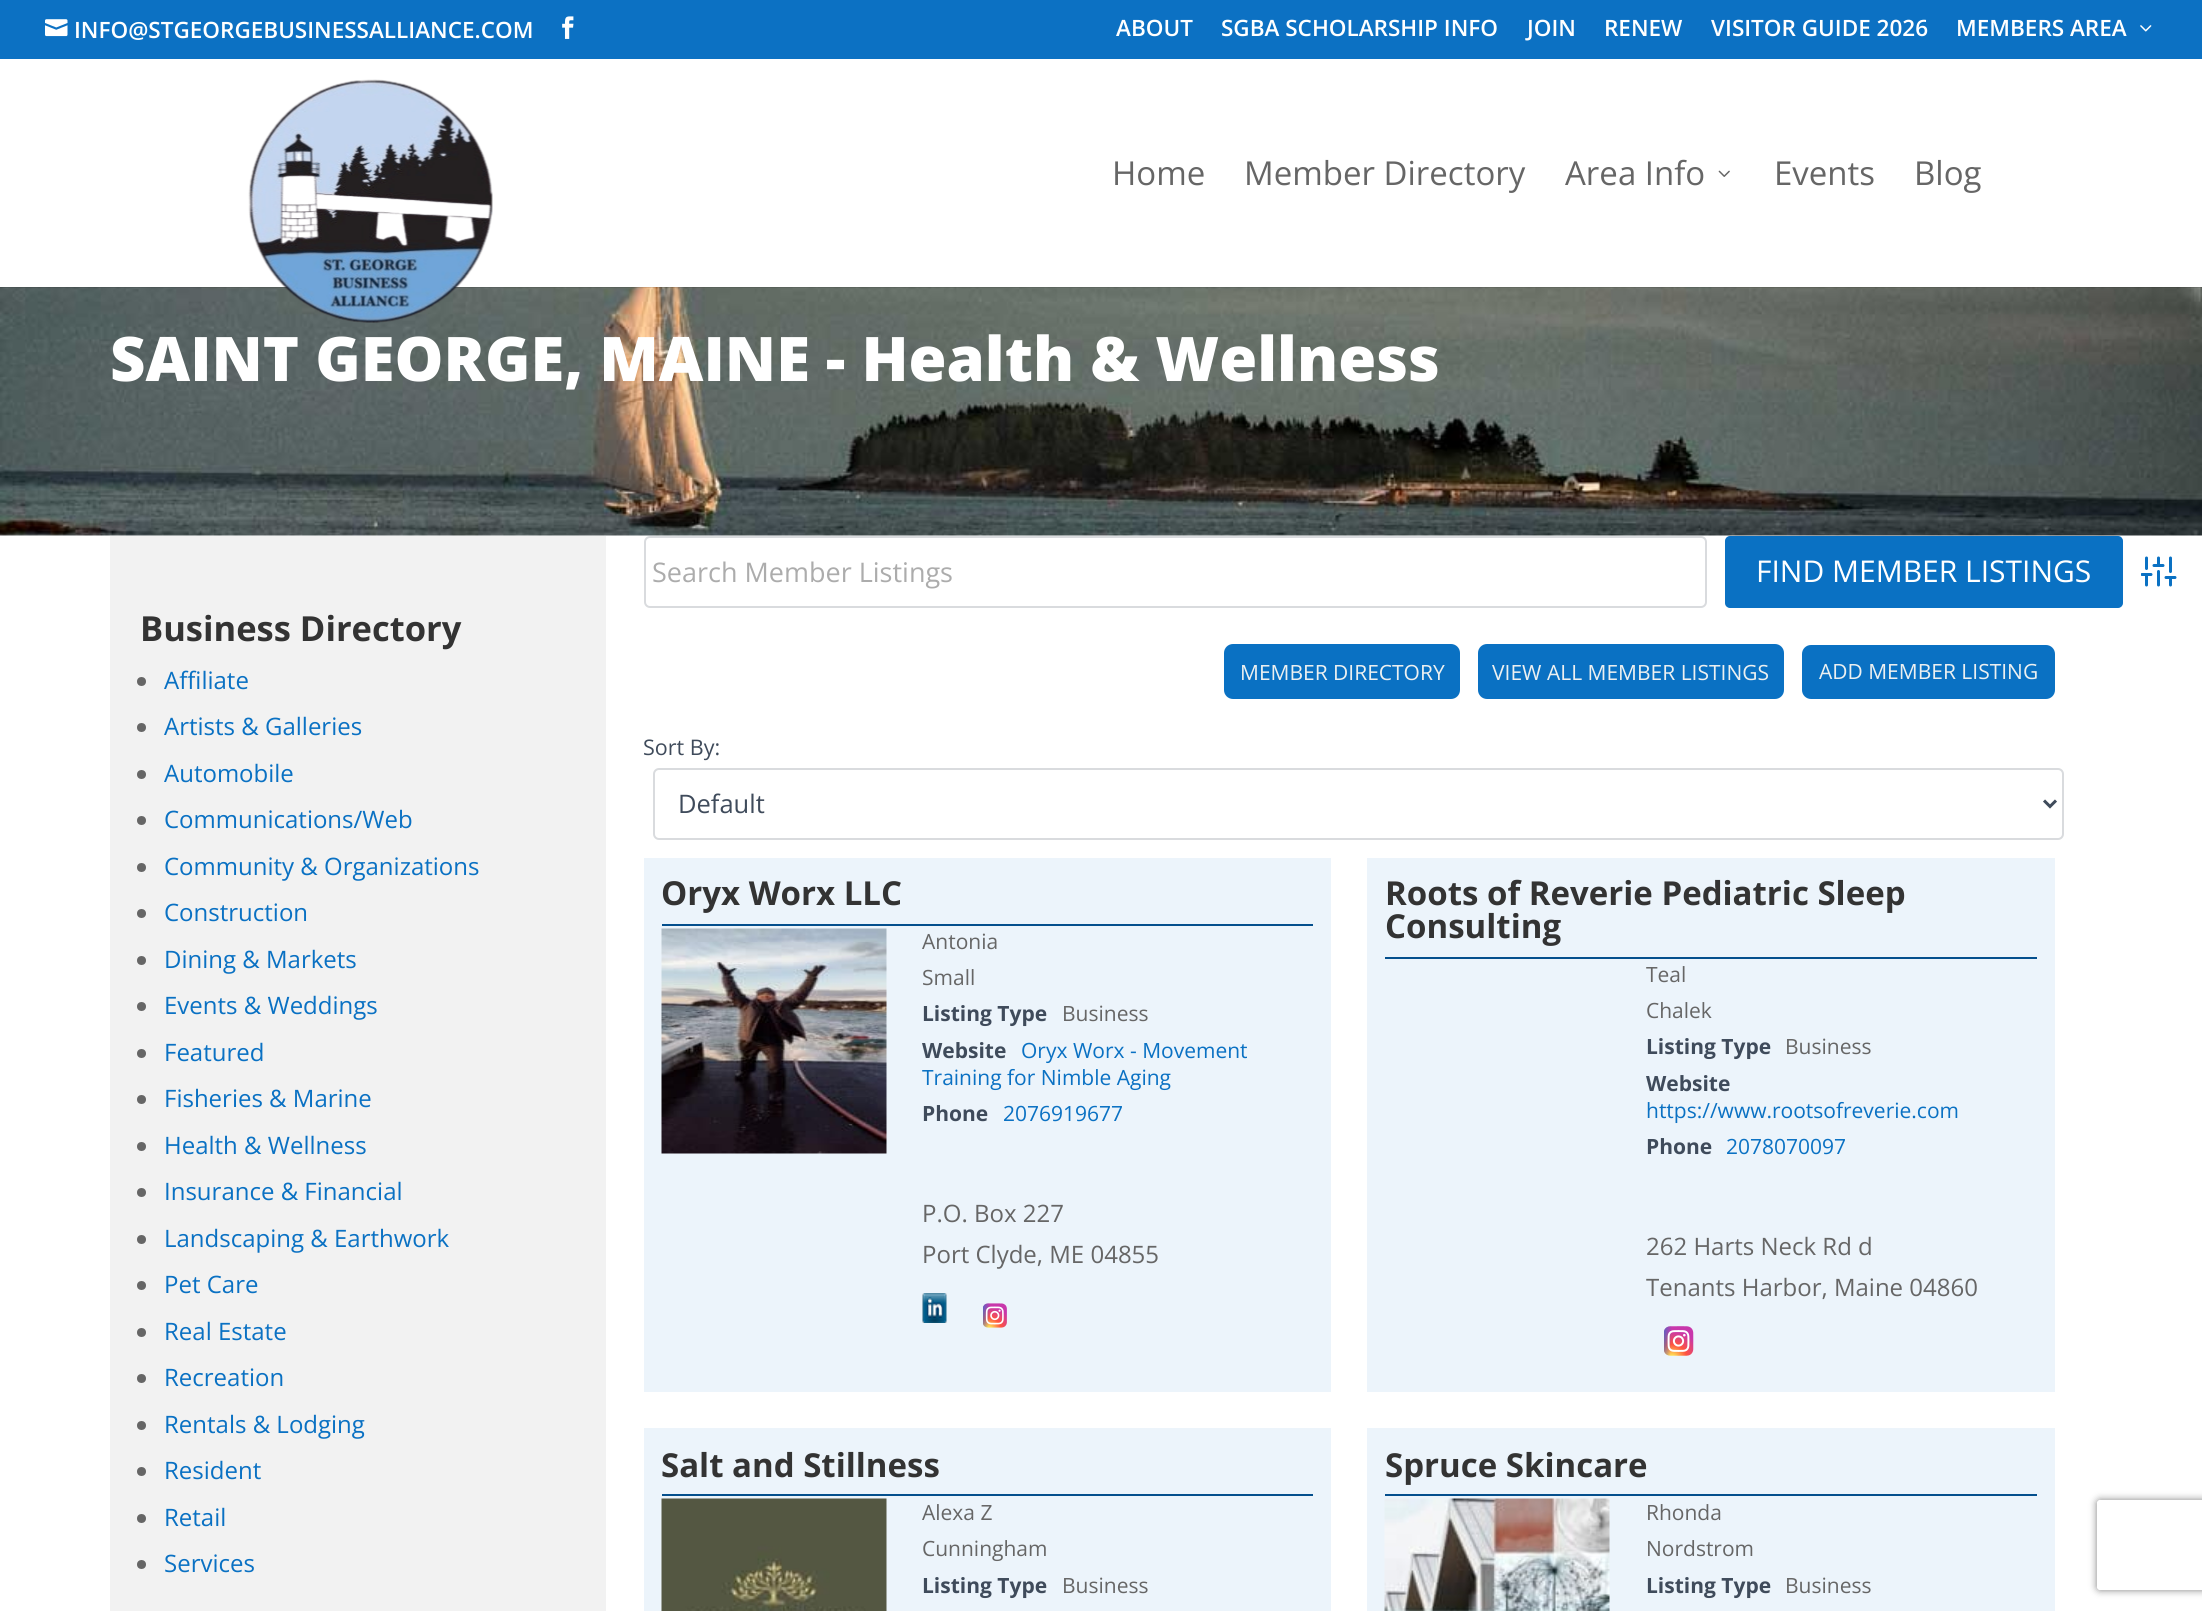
import math
import cairo

surface = cairo.ImageSurface(cairo.Format.RGB24, 2202, 1611)
ctx = cairo.Context(surface)
options = cairo.FontOptions()
options.set_hint_metrics(cairo.HintMetrics.OFF)
options.set_hint_style(cairo.HintStyle.NONE)
ctx.set_font_options(options)
ctx.set_miter_limit(4)


def ink(r, g, b):
    ctx.set_source_rgb(r / 255, g / 255, b / 255)


def write(x, y, s, family, size, color, bold=False, italic=False):
    ctx.select_font_face(family, cairo.FontSlant.ITALIC if italic else cairo.FontSlant.NORMAL, cairo.FontWeight.BOLD if bold else cairo.FontWeight.NORMAL)
    ctx.set_font_size(size)
    ink(*color)
    ctx.move_to(x, y)
    ctx.show_text(s)


def block(x, y, w, h, *color):
    ink(*color)
    ctx.rectangle(x, y, w, h)
    ctx.fill()


def round_path(x, y, w, h, r):
    ctx.new_sub_path()
    for i, (u, v) in enumerate([(x + w - r, y + h - r), (x + r, y + h - r), (x + r, y + r), (x + w - r, y + r)]):
        ctx.arc(u, v, r, i * math.pi / 2, (i + 1) * math.pi / 2)
    ctx.close_path()


def blur_box(x, y, w, h, r, blur, alpha):
    ctx.push_group_with_content(cairo.Content.ALPHA)
    ctx.set_operator(cairo.Operator.SOURCE)
    for i in range(15, -16, -2):
        e = blur * i / 6
        if min(w, h) + 2 * e > 0:
            ctx.set_source_rgba(0, 0, 0, alpha * math.erfc((i - 1) / 8.5) / 2)
            round_path(x - e, y - e, w + 2 * e, h + 2 * e, max(0, min(r + e + blur * .6, min(w, h) / 2 + e)))
            ctx.fill()
    ctx.mask(ctx.pop_group())


def paste(path, x, y, w, h):
    ctx.save()
    ctx.set_source_surface(cairo.ImageSurface.create_from_png(path), x, y)
    ctx.rectangle(x, y, w, h)
    ctx.fill()
    ctx.restore()


s1 = dict(family="Open Sans SemiBold", size=22.5, color=(255, 255, 255))
s2 = dict(family="Open Sans", size=33, color=(102, 102, 102))
s3 = dict(family="Open Sans ExtraBold", size=61.5, color=(255, 255, 255))
s4 = dict(family="Open Sans", size=34.5, color=(51, 51, 51), bold=True)
s5 = dict(family="Open Sans", size=24, color=(10, 113, 195))
s6 = dict(family="Open Sans", size=27, color=(172, 172, 172))
s7 = dict(family="Open Sans", size=30, color=(255, 255, 255))
s8 = dict(family="Open Sans", size=21, color=(236, 240, 241))
s9 = dict(family="Open Sans", size=21.5, color=(63, 75, 91))
s10 = dict(family="Open Sans", size=25.5, color=(63, 75, 91))
s11 = dict(family="Open Sans", size=33, color=(51, 51, 51), bold=True)
s12 = dict(family="Open Sans", size=21, color=(102, 102, 102))
s13 = dict(family="Open Sans", size=21, color=(63, 75, 91), bold=True)
s14 = dict(family="Open Sans", size=21, color=(10, 113, 195))
s15 = dict(family="Open Sans", size=24, color=(102, 102, 102))

ink(255, 255, 255)
ctx.paint()
block(0, 0, 2202, 59, 12, 113, 195)
paste("pic1.png", 45, 19, 23, 18)
write(74, 38, "INFO@STGEORGEBUSINESSALLIANCE.COM", **s1)
paste("pic2.png", 562, 16, 12, 23)
write(1116, 36, "ABOUT", **s1)
write(1221, 36, "SGBA SCHOLARSHIP INFO", **s1)
write(1527, 36, "JOIN", **s1)
write(1604, 36, "RENEW", **s1)
write(1711, 36, "VISITOR GUIDE 2026", **s1)
write(1956, 36, "MEMBERS AREA", **s1)
paste("pic3.png", 2140, 25, 12, 7)
paste("pic6.png", 0, 287, 2202, 249)
ctx.set_source_rgba(0, 0, 0, 0.1)
ctx.rectangle(0, 287, 2202, 1)
ctx.fill()
paste("pic4.png", 248, 79, 245, 244)
write(1112, 185, "Home", **s2)
write(1244, 185, "Member Directory", **s2)
write(1565, 185, "Area Info", **s2)
paste("pic5.png", 1718, 170, 12, 7)
write(1774, 185, "Events", **s2)
write(1914, 185, "Blog", **s2)
write(110, 381, "SAINT GEORGE, MAINE - Health & Wellness", **s3)
block(110, 536, 496, 1075, 242, 242, 242)
write(140, 641, "Business Directory", **s4)
ink(102, 102, 102)
ctx.new_path()
ctx.arc(141.5, 681.5, 4.5, 0, 2 * math.pi)
ctx.fill()
write(164, 689, "Affiliate", **s5)
ink(102, 102, 102)
ctx.new_path()
ctx.arc(141.5, 727.5, 4.5, 0, 2 * math.pi)
ctx.fill()
write(164, 735, "Artists & Galleries", **s5)
ink(102, 102, 102)
ctx.new_path()
ctx.arc(141.5, 774.5, 4.5, 0, 2 * math.pi)
ctx.fill()
write(164, 782, "Automobile", **s5)
ink(102, 102, 102)
ctx.new_path()
ctx.arc(141.5, 820.5, 4.5, 0, 2 * math.pi)
ctx.fill()
write(164, 828, "Communications/Web", **s5)
ink(102, 102, 102)
ctx.new_path()
ctx.arc(141.5, 867.5, 4.5, 0, 2 * math.pi)
ctx.fill()
write(164, 875, "Community & Organizations", **s5)
ink(102, 102, 102)
ctx.new_path()
ctx.arc(141.5, 913.5, 4.5, 0, 2 * math.pi)
ctx.fill()
write(164, 921, "Construction", **s5)
ink(102, 102, 102)
ctx.new_path()
ctx.arc(141.5, 960.5, 4.5, 0, 2 * math.pi)
ctx.fill()
write(164, 968, "Dining & Markets", **s5)
ink(102, 102, 102)
ctx.new_path()
ctx.arc(141.5, 1006.5, 4.5, 0, 2 * math.pi)
ctx.fill()
write(164, 1014, "Events & Weddings", **s5)
ink(102, 102, 102)
ctx.new_path()
ctx.arc(141.5, 1053.5, 4.5, 0, 2 * math.pi)
ctx.fill()
write(164, 1061, "Featured", **s5)
ink(102, 102, 102)
ctx.new_path()
ctx.arc(141.5, 1099.5, 4.5, 0, 2 * math.pi)
ctx.fill()
write(164, 1107, "Fisheries & Marine", **s5)
ink(102, 102, 102)
ctx.new_path()
ctx.arc(141.5, 1146.5, 4.5, 0, 2 * math.pi)
ctx.fill()
write(164, 1154, "Health & Wellness", **s5)
ink(102, 102, 102)
ctx.new_path()
ctx.arc(141.5, 1192.5, 4.5, 0, 2 * math.pi)
ctx.fill()
write(164, 1200, "Insurance & Financial", **s5)
ink(102, 102, 102)
ctx.new_path()
ctx.arc(141.5, 1239.5, 4.5, 0, 2 * math.pi)
ctx.fill()
write(164, 1247, "Landscaping & Earthwork", **s5)
ink(102, 102, 102)
ctx.new_path()
ctx.arc(141.5, 1285.5, 4.5, 0, 2 * math.pi)
ctx.fill()
write(164, 1293, "Pet Care", **s5)
ink(102, 102, 102)
ctx.new_path()
ctx.arc(141.5, 1332.5, 4.5, 0, 2 * math.pi)
ctx.fill()
write(164, 1340, "Real Estate", **s5)
ink(102, 102, 102)
ctx.new_path()
ctx.arc(141.5, 1378.5, 4.5, 0, 2 * math.pi)
ctx.fill()
write(164, 1386, "Recreation", **s5)
ink(102, 102, 102)
ctx.new_path()
ctx.arc(141.5, 1425.5, 4.5, 0, 2 * math.pi)
ctx.fill()
write(164, 1433, "Rentals & Lodging", **s5)
ink(102, 102, 102)
ctx.new_path()
ctx.arc(141.5, 1471.5, 4.5, 0, 2 * math.pi)
ctx.fill()
write(164, 1479, "Resident", **s5)
ink(102, 102, 102)
ctx.new_path()
ctx.arc(141.5, 1518.5, 4.5, 0, 2 * math.pi)
ctx.fill()
write(164, 1526, "Retail", **s5)
ink(102, 102, 102)
ctx.new_path()
ctx.arc(141.5, 1564.5, 4.5, 0, 2 * math.pi)
ctx.fill()
write(164, 1572, "Services", **s5)
round_path(645, 537, 1061, 70, 5)
ink(217, 219, 222)
ctx.stroke()
write(652, 582, "Search Member Listings", **s6)
ink(10, 113, 195)
round_path(1726, 537, 396, 70, 4)
ctx.fill_preserve()
ctx.stroke()
write(1756, 582, "FIND MEMBER LISTINGS", **s7)
ctx.save()
ctx.rectangle(2141, 554, 36, 36)
ctx.clip()
ctx.new_path()
ctx.move_to(2146.5, 585)
ctx.line_to(2146.5, 574.5)
ctx.move_to(2146.5, 568.5)
ctx.line_to(2146.5, 558)
ctx.move_to(2158.5, 585)
ctx.line_to(2158.5, 571.5)
ctx.move_to(2158.5, 565.5)
ctx.line_to(2158.5, 558)
ctx.move_to(2170.5, 585)
ctx.line_to(2170.5, 577.5)
ctx.move_to(2170.5, 571.5)
ctx.line_to(2170.5, 558)
ctx.move_to(2142, 574.5)
ctx.line_to(2151, 574.5)
ctx.move_to(2154, 565.5)
ctx.line_to(2163, 565.5)
ctx.move_to(2166, 577.5)
ctx.line_to(2175, 577.5)
ink(10, 113, 195)
ctx.set_line_width(3)
ctx.set_line_cap(cairo.LineCap.ROUND)
ctx.set_line_join(cairo.LineJoin.ROUND)
ctx.stroke()
ctx.restore()
ink(10, 113, 195)
round_path(1224, 644, 236, 55, 9)
ctx.fill()
write(1240, 680, "MEMBER DIRECTORY", **s8)
ink(10, 113, 195)
round_path(1478, 644, 306, 55, 9)
ctx.fill()
write(1492, 680, "VIEW ALL MEMBER LISTINGS", **s8)
ink(10, 113, 195)
round_path(1803, 646, 251, 52, 8)
ctx.fill_preserve()
ctx.stroke()
write(1819, 679, "ADD MEMBER LISTING", **s8)
write(643, 755, "Sort By:", **s9)
round_path(654, 769, 1409, 70, 5)
ink(217, 219, 222)
ctx.stroke()
ctx.new_path()
ctx.move_to(2044, 800.5)
ctx.line_to(2050, 806.5)
ctx.line_to(2056, 800.5)
ink(63, 75, 91)
ctx.set_line_width(3)
ctx.stroke()
write(678, 813, "Default", **s10)
block(644, 858, 687, 534, 236, 244, 251)
block(662, 924, 651, 2, 4, 79, 141)
write(661, 905, "Oryx Worx LLC", **s11)
paste("pic7.png", 661, 928, 226, 226)
write(922, 949, "Antonia", **s12)
write(922, 985, "Small", **s12)
write(922, 1021, "Listing Type", **s13)
write(1062, 1021, "Business", **s12)
write(922, 1058, "Website", **s13)
write(1021, 1058, "Oryx Worx - Movement", **s14)
write(922, 1085, "Training for Nimble Aging", **s14)
write(922, 1121, "Phone", **s13)
write(1003, 1121, "2076919677", **s14)
write(922, 1222, "P.O. Box 227", **s15)
write(922, 1263, "Port Clyde, ME 04855", **s15)
paste("pic8.png", 922, 1293, 25, 30)
paste("pic9.png", 983, 1303, 24, 25)
block(1367, 858, 688, 534, 236, 244, 251)
block(1385, 957, 652, 2, 4, 79, 141)
write(1385, 905, "Roots of Reverie Pediatric Sleep", **s11)
write(1385, 938, "Consulting", **s11)
write(1646, 982, "Teal", **s12)
write(1646, 1018, "Chalek", **s12)
write(1646, 1054, "Listing Type", **s13)
write(1785, 1054, "Business", **s12)
write(1646, 1091, "Website", **s13)
write(1646, 1118, "https://www.rootsofreverie.com", **s14)
write(1646, 1154, "Phone", **s13)
write(1726, 1154, "2078070097", **s14)
write(1646, 1255, "262 Harts Neck Rd d", **s15)
write(1646, 1296, "Tenants Harbor, Maine 04860", **s15)
paste("pic10.png", 1664, 1326, 30, 30)
block(644, 1428, 687, 183, 236, 244, 251)
block(662, 1494, 651, 2, 4, 79, 141)
write(661, 1477, "Salt and Stillness", **s11)
paste("pic11.png", 661, 1498, 226, 113)
write(922, 1520, "Alexa Z", **s12)
write(922, 1556, "Cunningham", **s12)
write(922, 1593, "Listing Type", **s13)
write(1062, 1593, "Business", **s12)
block(1367, 1428, 688, 183, 236, 244, 251)
block(1385, 1494, 652, 2, 4, 79, 141)
write(1385, 1477, "Spruce Skincare", **s11)
paste("pic12.png", 1384, 1498, 226, 113)
write(1646, 1520, "Rhonda", **s12)
write(1646, 1556, "Nordstrom", **s12)
write(1646, 1593, "Listing Type", **s13)
write(1785, 1593, "Business", **s12)
ctx.save()
ctx.set_fill_rule(cairo.FillRule.EVEN_ODD)
ctx.new_path()
ctx.move_to(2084, 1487)
ctx.line_to(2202, 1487)
ctx.line_to(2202, 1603)
ctx.line_to(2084, 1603)
ctx.close_path()
ctx.move_to(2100, 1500)
ctx.line_to(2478, 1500)
ctx.curve_to(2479.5, 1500, 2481, 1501.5, 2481, 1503)
ctx.line_to(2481, 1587)
ctx.curve_to(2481, 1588.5, 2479.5, 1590, 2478, 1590)
ctx.line_to(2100, 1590)
ctx.curve_to(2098.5, 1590, 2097, 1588.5, 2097, 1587)
ctx.line_to(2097, 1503)
ctx.curve_to(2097, 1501.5, 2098.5, 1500, 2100, 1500)
ctx.close_path()
ctx.clip()
ink(128, 128, 128)
blur_box(2097, 1500, 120, 90, 3, 4, 1)
ctx.restore()
surface.write_to_png("screenshot.png")
